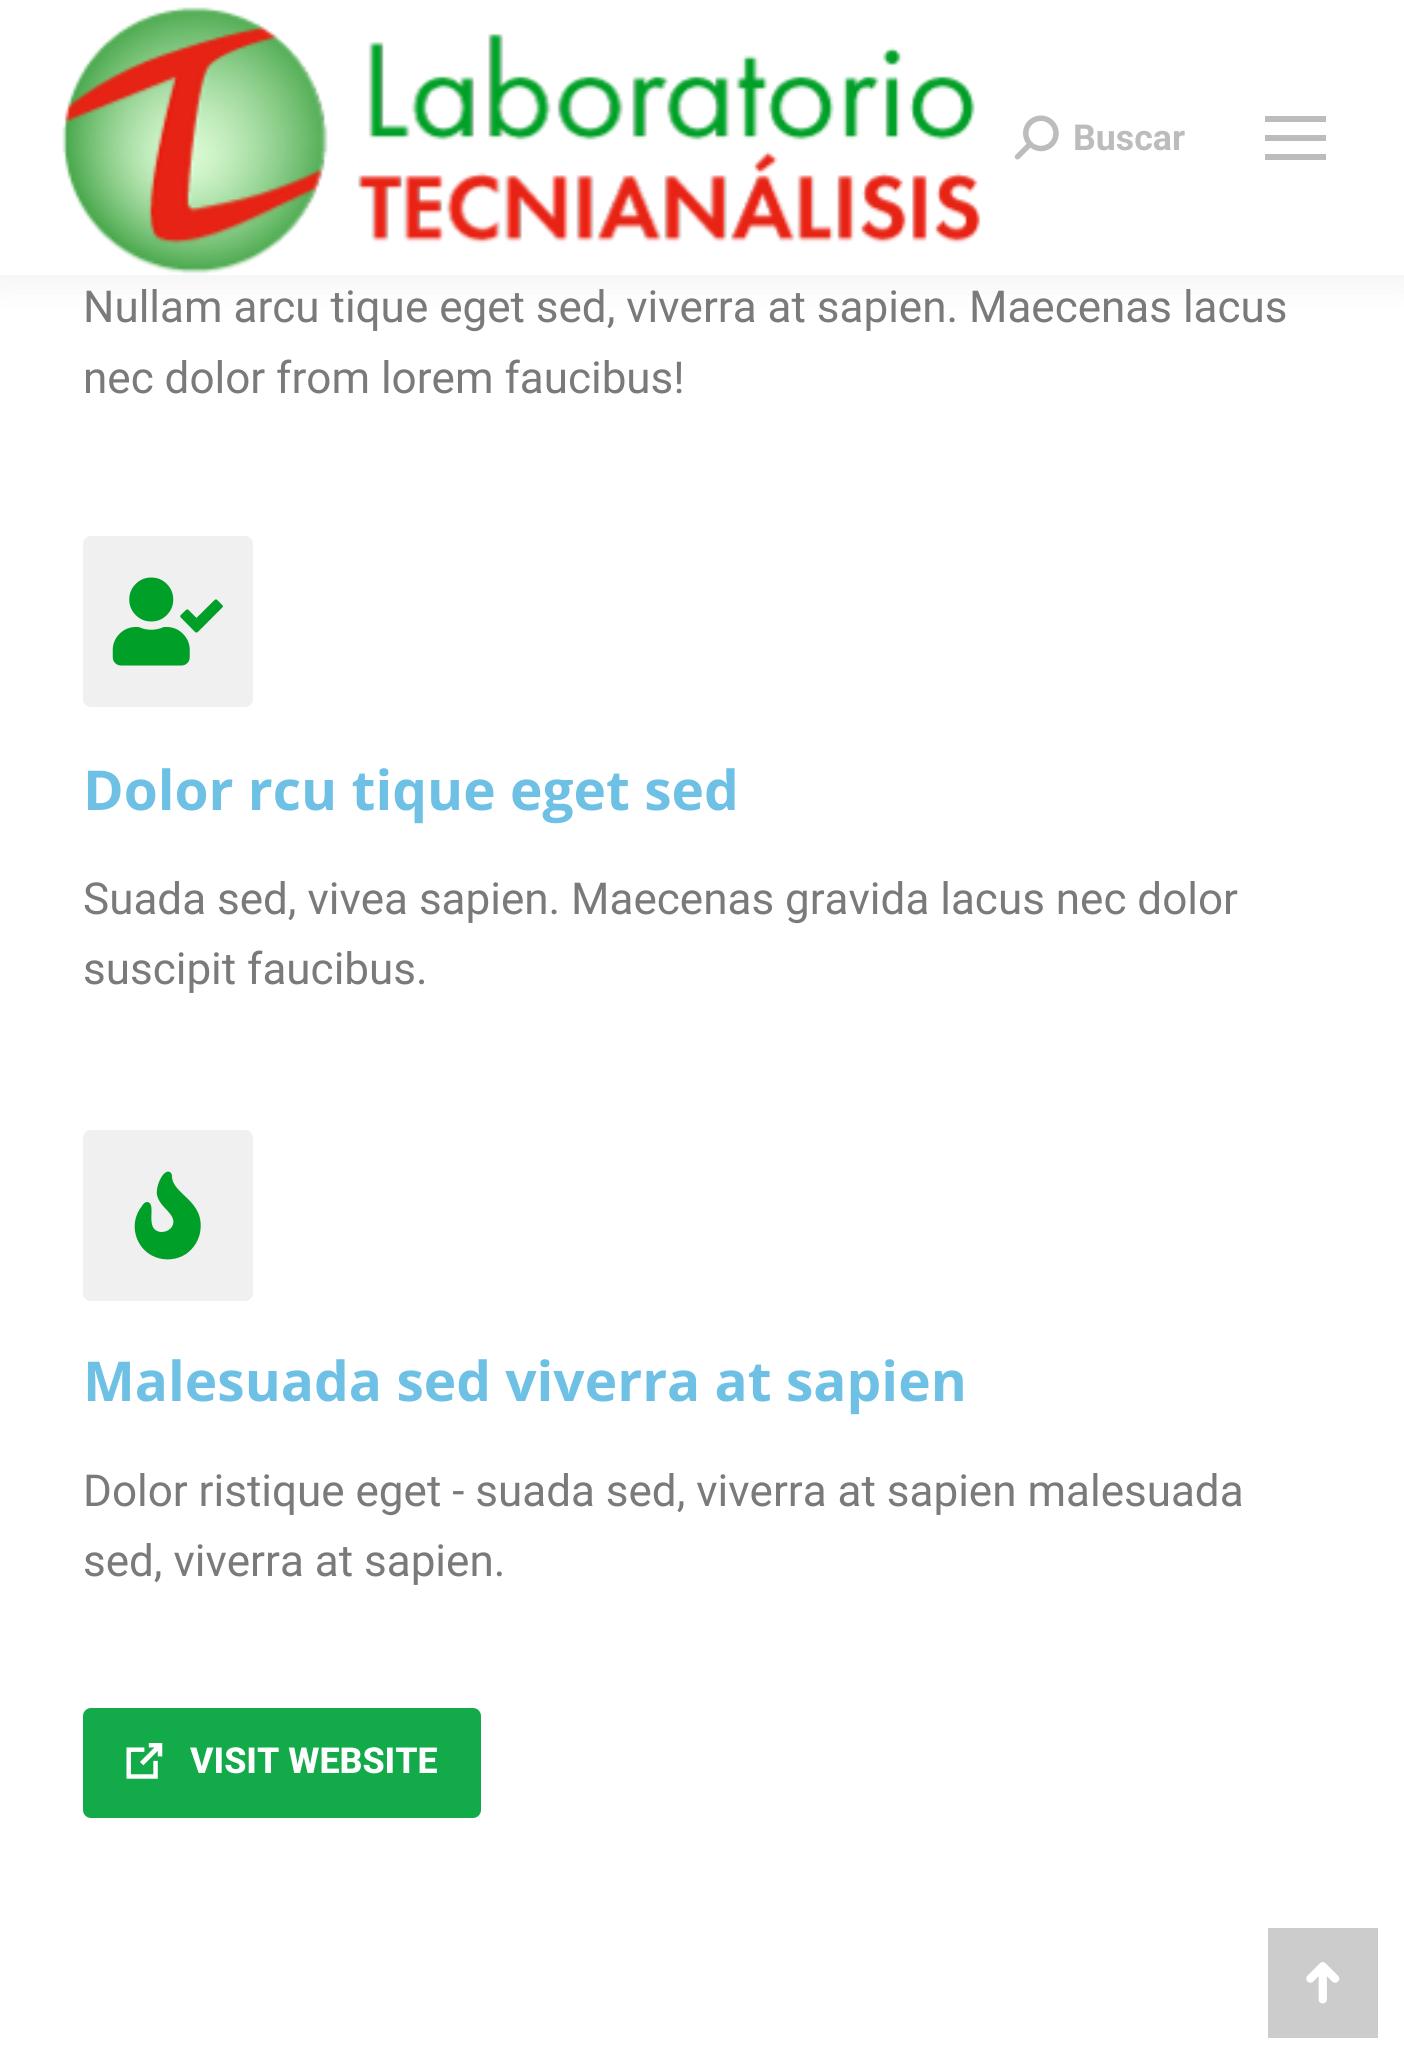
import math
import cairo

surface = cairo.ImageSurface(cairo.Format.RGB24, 1404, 2063)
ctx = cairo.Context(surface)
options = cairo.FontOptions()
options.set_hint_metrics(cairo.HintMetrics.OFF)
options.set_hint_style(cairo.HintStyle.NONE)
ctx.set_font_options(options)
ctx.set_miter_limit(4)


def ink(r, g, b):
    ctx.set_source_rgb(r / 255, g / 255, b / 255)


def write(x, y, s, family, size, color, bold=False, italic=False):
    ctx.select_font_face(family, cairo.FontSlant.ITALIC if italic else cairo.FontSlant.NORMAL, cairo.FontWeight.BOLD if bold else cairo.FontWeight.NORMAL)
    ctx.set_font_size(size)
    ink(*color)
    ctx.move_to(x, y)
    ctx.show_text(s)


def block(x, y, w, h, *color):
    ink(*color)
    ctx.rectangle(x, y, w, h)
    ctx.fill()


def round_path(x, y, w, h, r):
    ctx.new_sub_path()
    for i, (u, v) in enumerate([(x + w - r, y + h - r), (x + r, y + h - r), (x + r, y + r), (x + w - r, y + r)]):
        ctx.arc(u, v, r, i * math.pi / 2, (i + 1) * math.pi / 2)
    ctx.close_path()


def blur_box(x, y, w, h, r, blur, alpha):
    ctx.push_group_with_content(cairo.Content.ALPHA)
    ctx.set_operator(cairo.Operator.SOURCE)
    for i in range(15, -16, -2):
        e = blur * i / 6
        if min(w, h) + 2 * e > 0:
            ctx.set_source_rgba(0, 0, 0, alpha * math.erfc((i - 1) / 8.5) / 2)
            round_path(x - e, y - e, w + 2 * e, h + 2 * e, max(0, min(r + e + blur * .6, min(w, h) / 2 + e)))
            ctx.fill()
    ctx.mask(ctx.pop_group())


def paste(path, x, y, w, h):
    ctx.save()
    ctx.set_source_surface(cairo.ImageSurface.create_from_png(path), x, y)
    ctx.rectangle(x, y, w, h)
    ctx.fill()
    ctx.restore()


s1 = dict(family="Roboto", size=35.75, color=(188, 188, 188), bold=True)
s2 = dict(family="Roboto", size=44, color=(122, 122, 122))
s3 = dict(family="Open Sans", size=55, color=(110, 193, 228), bold=True)
s4 = dict(family="Roboto ExtraBold", size=35.75, color=(255, 255, 255))

ink(255, 255, 255)
ctx.paint()
ink(0, 0, 0)
blur_box(-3, -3, 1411, 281, 0, 20.5, 0.07)
block(0, 0, 1404, 275, 255, 255, 255)
paste("pic1.png", 62, 7, 919, 268)
paste("pic2.png", 1014, 115, 45, 45)
write(1073, 150, "Buscar", **s1)
block(1265, 116, 61, 6, 188, 188, 188)
block(1265, 135, 61, 6, 188, 188, 188)
block(1265, 154, 61, 6, 188, 188, 188)
write(83, 322, "Nullam arcu tique eget sed, viverra at sapien. Maecenas lacus", **s2)
write(83, 393, "nec dolor from lorem faucibus!", **s2)
ink(240, 240, 240)
round_path(83, 536, 170, 171, 8)
ctx.fill()
paste("pic3.png", 112, 577, 111, 89)
write(83, 810, "Dolor rcu tique eget sed", **s3)
write(83, 914, "Suada sed, vivea sapien. Maecenas gravida lacus nec dolor", **s2)
write(83, 984, "suscipit faucibus.", **s2)
ink(240, 240, 240)
round_path(83, 1130, 170, 171, 8)
ctx.fill()
ink(0, 159, 40)
ctx.new_path()
ctx.move_to(172, 1176)
ctx.curve_to(172, 1195, 206, 1200, 200, 1233)
ctx.curve_to(198, 1242, 193, 1249, 186, 1254)
ctx.curve_to(177, 1260, 165, 1261, 155, 1257)
ctx.curve_to(135, 1249, 128, 1223, 142, 1206)
ctx.curve_to(143, 1204, 145, 1202, 147, 1202)
ctx.curve_to(158, 1203, 143, 1230, 161, 1232)
ctx.curve_to(165, 1232, 168, 1231, 171, 1228)
ctx.curve_to(179, 1218, 165, 1210, 160, 1202)
ctx.curve_to(158, 1199, 156, 1194, 157, 1190)
ctx.curve_to(157, 1185, 163, 1169, 170, 1172)
ctx.curve_to(171, 1173, 172, 1174, 172, 1176)
ctx.close_path()
ctx.fill()
write(83, 1401, "Malesuada sed viverra at sapien", **s3)
write(83, 1506, "Dolor ristique eget - suada sed, viverra at sapien malesuada", **s2)
write(83, 1576, "sed, viverra at sapien.", **s2)
ink(19, 170, 74)
round_path(83, 1708, 398, 110, 8)
ctx.fill()
paste("pic4.png", 126, 1743, 37, 36)
write(190, 1773, "VISIT WEBSITE", **s4)
block(1268, 1928, 110, 110, 204, 204, 204)
paste("pic5.png", 1306, 1962, 34, 42)
surface.write_to_png("screenshot.png")
